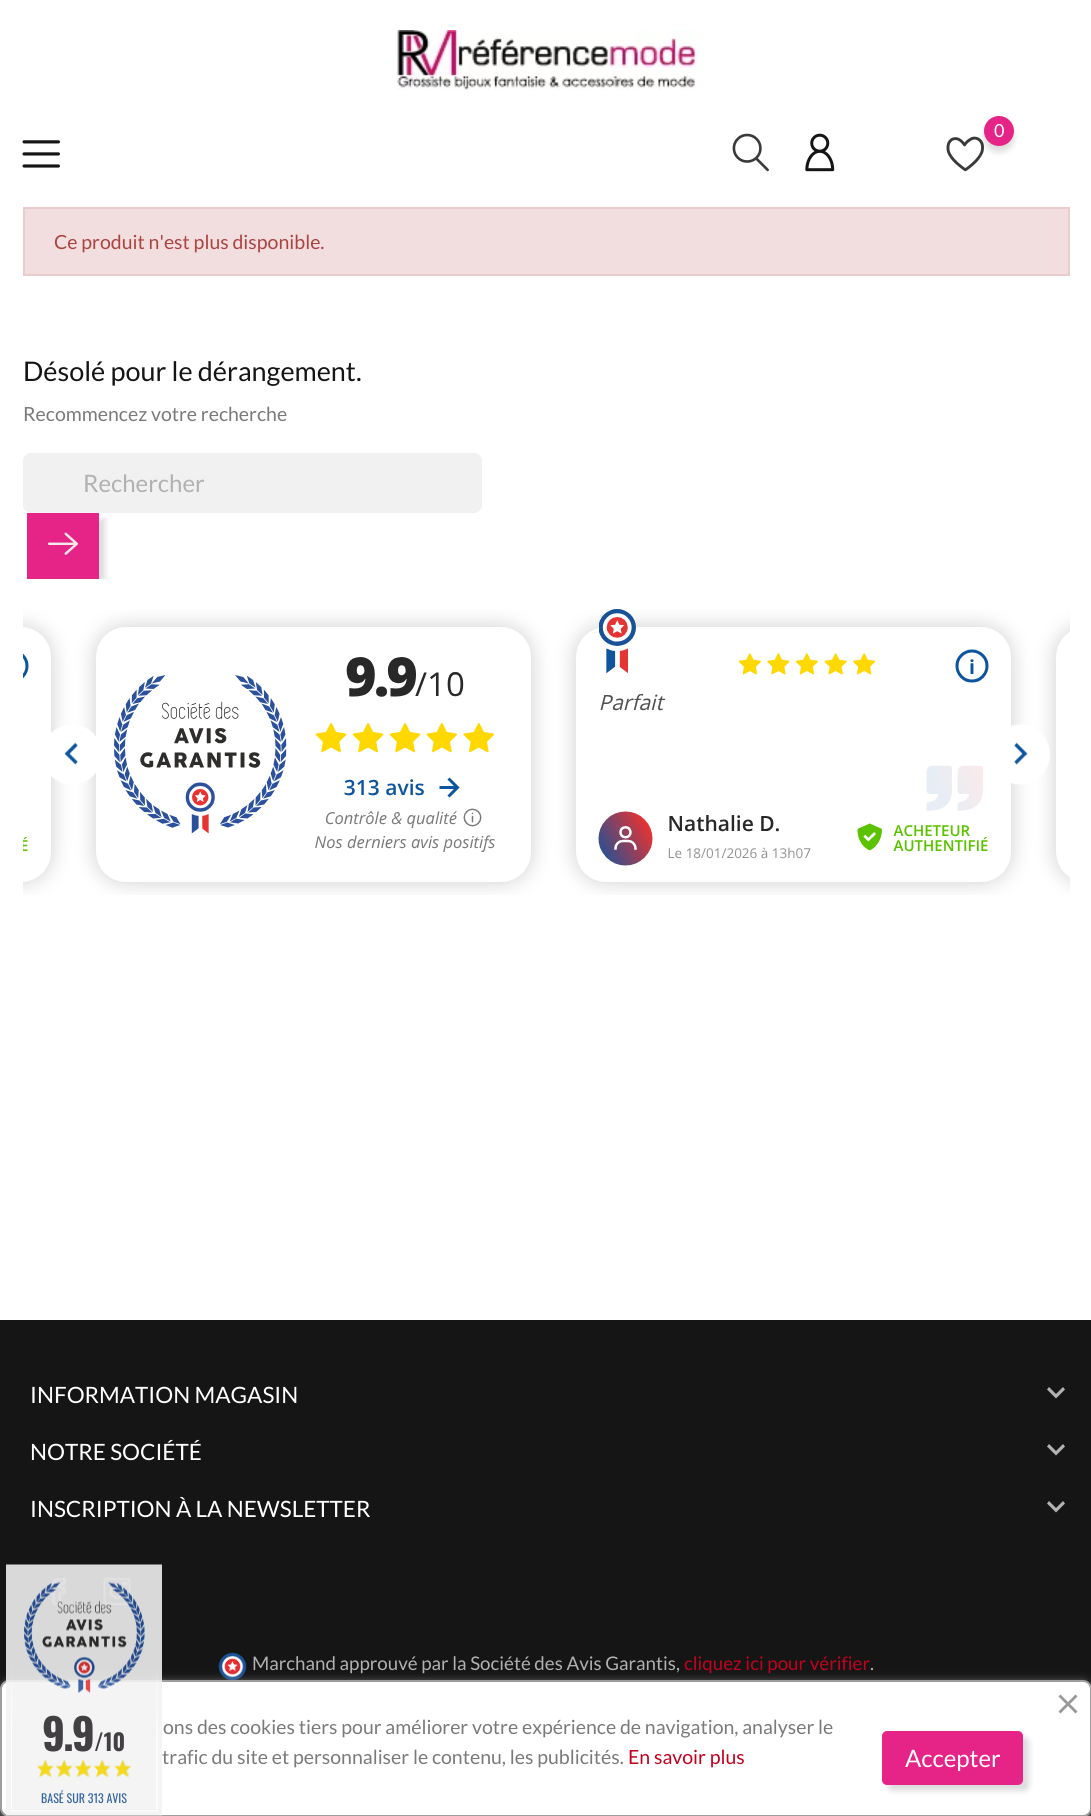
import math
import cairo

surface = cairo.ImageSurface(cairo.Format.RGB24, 1091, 1816)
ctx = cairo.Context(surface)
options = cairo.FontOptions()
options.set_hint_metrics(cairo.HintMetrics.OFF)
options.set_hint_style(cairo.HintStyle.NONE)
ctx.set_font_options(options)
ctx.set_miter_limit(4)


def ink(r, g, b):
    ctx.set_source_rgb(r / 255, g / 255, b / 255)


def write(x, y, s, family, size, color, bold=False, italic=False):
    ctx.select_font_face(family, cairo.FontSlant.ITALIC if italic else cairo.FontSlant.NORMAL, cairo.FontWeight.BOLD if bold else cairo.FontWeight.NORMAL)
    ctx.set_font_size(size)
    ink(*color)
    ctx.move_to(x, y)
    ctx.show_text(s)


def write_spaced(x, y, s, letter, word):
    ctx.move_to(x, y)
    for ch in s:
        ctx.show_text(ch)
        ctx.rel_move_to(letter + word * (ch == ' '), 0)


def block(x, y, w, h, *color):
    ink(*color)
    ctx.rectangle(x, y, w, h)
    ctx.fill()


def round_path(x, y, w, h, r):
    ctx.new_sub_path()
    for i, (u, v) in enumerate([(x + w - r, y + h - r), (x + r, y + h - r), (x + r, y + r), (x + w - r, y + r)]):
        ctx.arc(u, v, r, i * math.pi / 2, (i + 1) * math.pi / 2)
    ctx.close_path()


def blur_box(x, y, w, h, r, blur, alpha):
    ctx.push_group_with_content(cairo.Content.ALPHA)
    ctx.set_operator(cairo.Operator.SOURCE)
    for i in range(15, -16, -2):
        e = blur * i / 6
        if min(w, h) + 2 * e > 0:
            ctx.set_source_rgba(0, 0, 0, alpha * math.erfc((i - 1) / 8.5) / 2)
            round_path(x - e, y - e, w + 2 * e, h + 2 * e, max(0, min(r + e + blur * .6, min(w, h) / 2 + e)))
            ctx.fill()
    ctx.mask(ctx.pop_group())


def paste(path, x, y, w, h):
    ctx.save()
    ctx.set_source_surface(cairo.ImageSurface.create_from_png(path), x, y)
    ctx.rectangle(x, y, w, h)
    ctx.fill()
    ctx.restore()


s1 = dict(family="Lato", size=18, color=(255, 255, 255))
s2 = dict(family="Lato", size=19.5, color=(169, 68, 66))
s3 = dict(family="Lato", size=27, color=(21, 21, 21))
s4 = dict(family="Lato", size=19.5, color=(122, 122, 122))
s5 = dict(family="Lato", size=24, color=(177, 177, 177))
s6 = dict(family="Lato", size=22.5, color=(255, 255, 255))
s7 = dict(family="Lato", size=18.75, color=(177, 177, 177))
s8 = dict(family="Lato", size=18.75, color=(193, 2, 31))
s9 = dict(family="Oswald", size=23, color=(67, 64, 68), bold=True)
s10 = dict(family="Oswald", size=12, color=(53, 102, 163))
s11 = dict(family="Lato", size=19.5, color=(193, 2, 31))
s12 = dict(family="Lato", size=24, color=(255, 255, 255))

ink(255, 255, 255)
ctx.paint()
paste("pic1.png", 396, 30, 302, 60)
paste("pic2.png", 22, 140, 38, 28)
paste("pic3.png", 946, 136, 38, 36)
ink(0, 0, 0)
blur_box(984, 122, 30, 30, 15, 3, 0.14)
ink(230, 36, 135)
ctx.arc(999, 131, 15, 0, 2 * math.pi)
ctx.fill()
write(994, 137, "0", **s1)
paste("pic4.png", 732, 133, 37, 39)
paste("pic5.png", 805, 133, 30, 39)
ink(242, 222, 222)
ctx.rectangle(24, 208, 1045, 67)
ctx.fill_preserve()
ink(235, 204, 204)
ctx.stroke()
write(54, 249, "Ce produit n'est plus disponible.", **s2)
write(23, 381, "Désolé pour le dérangement.", **s3)
write(23, 421, "Recommencez votre recherche", **s4)
ctx.save()
ctx.rectangle(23, 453, 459, 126)
ctx.clip()
ink(0, 0, 0)
blur_box(33, 519, 72, 66, 0, 3, 0.14)
ctx.restore()
ink(241, 241, 241)
round_path(23, 453, 459, 60, 8)
ctx.fill()
write(83, 492, "Rechercher", **s5)
block(27, 513, 72, 66, 230, 36, 135)
paste("pic6.png", 48, 532, 30, 23)
paste("pic7.png", 23, 609, 1047, 286)
block(0, 1320, 1091, 369, 21, 21, 21)
write(30, 1403, "INFORMATION MAGASIN", **s6)
ink(178, 178, 178)
ctx.new_path()
ctx.move_to(1049, 1387)
ctx.line_to(1056, 1394)
ctx.line_to(1063, 1387)
ctx.line_to(1065, 1389.5)
ctx.line_to(1056, 1398.5)
ctx.line_to(1047, 1389.5)
ctx.close_path()
ctx.fill()
write(30, 1460, "NOTRE SOCIÉTÉ", **s6)
ink(178, 178, 178)
ctx.new_path()
ctx.move_to(1049, 1444)
ctx.line_to(1056, 1451)
ctx.line_to(1063, 1444)
ctx.line_to(1065, 1446.5)
ctx.line_to(1056, 1455.5)
ctx.line_to(1047, 1446.5)
ctx.close_path()
ctx.fill()
write(30, 1517, "INSCRIPTION À LA NEWSLETTER", **s6)
ink(178, 178, 178)
ctx.new_path()
ctx.move_to(1049, 1501)
ctx.line_to(1056, 1508)
ctx.line_to(1063, 1501)
ctx.line_to(1065, 1503.5)
ctx.line_to(1056, 1512.5)
ctx.line_to(1047, 1503.5)
ctx.close_path()
ctx.fill()
paste("pic8.png", 47, 1578, 20, 27)
paste("pic9.png", 103, 1578, 28, 27)
paste("pic10.png", 218, 1652, 29, 28)
write(252, 1670, "Marchand approuvé par la Société des Avis Garantis,", **s7)
write(684, 1670, "cliquez ici pour vérifier", **s8)
write(870, 1670, ".", **s7)
block(0, 1808, 1091, 8, 60, 60, 60)
ink(158, 158, 158)
blur_box(3, 1683, 1086, 131, 6, 5, 1)
ink(255, 255, 255)
round_path(1, 1681, 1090, 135, 8)
ctx.fill_preserve()
ink(158, 158, 158)
ctx.stroke()
paste("pic11.png", 6, 1564, 156, 252)
ctx.select_font_face("Oswald", cairo.FontSlant.NORMAL, cairo.FontWeight.BOLD)
ctx.set_font_size(43)
ink(67, 64, 68)
write_spaced(42, 1751, "9.9", -2, 0)
write(94, 1751, "/10", **s9)
paste("pic12.png", 37, 1759, 94, 19)
write(41, 1803, "BASÉ SUR 313 AVIS", **s10)
ink(153, 153, 153)
ctx.new_path()
ctx.move_to(1058.5, 1711.5)
ctx.line_to(1075.5, 1694.5)
ctx.line_to(1077.5, 1696.5)
ctx.line_to(1060.5, 1713.5)
ctx.close_path()
ctx.fill()
ctx.new_path()
ctx.move_to(1060.5, 1694.5)
ctx.line_to(1077.5, 1711.5)
ctx.line_to(1075.5, 1713.5)
ctx.line_to(1058.5, 1696.5)
ctx.close_path()
ctx.fill()
write(163, 1734, "ons des cookies tiers pour améliorer votre expérience de navigation, analyser le", **s4)
write(162, 1764, "trafic du site et personnaliser le contenu, les publicités.", **s4)
write(628, 1764, "En savoir plus", **s11)
ink(0, 0, 0)
blur_box(888, 1737, 141, 54, 5, 3, 0.14)
ink(230, 36, 135)
round_path(883, 1732, 139, 52, 4)
ctx.fill_preserve()
ctx.stroke()
write(905, 1767, "Accepter", **s12)
surface.write_to_png("screenshot.png")
